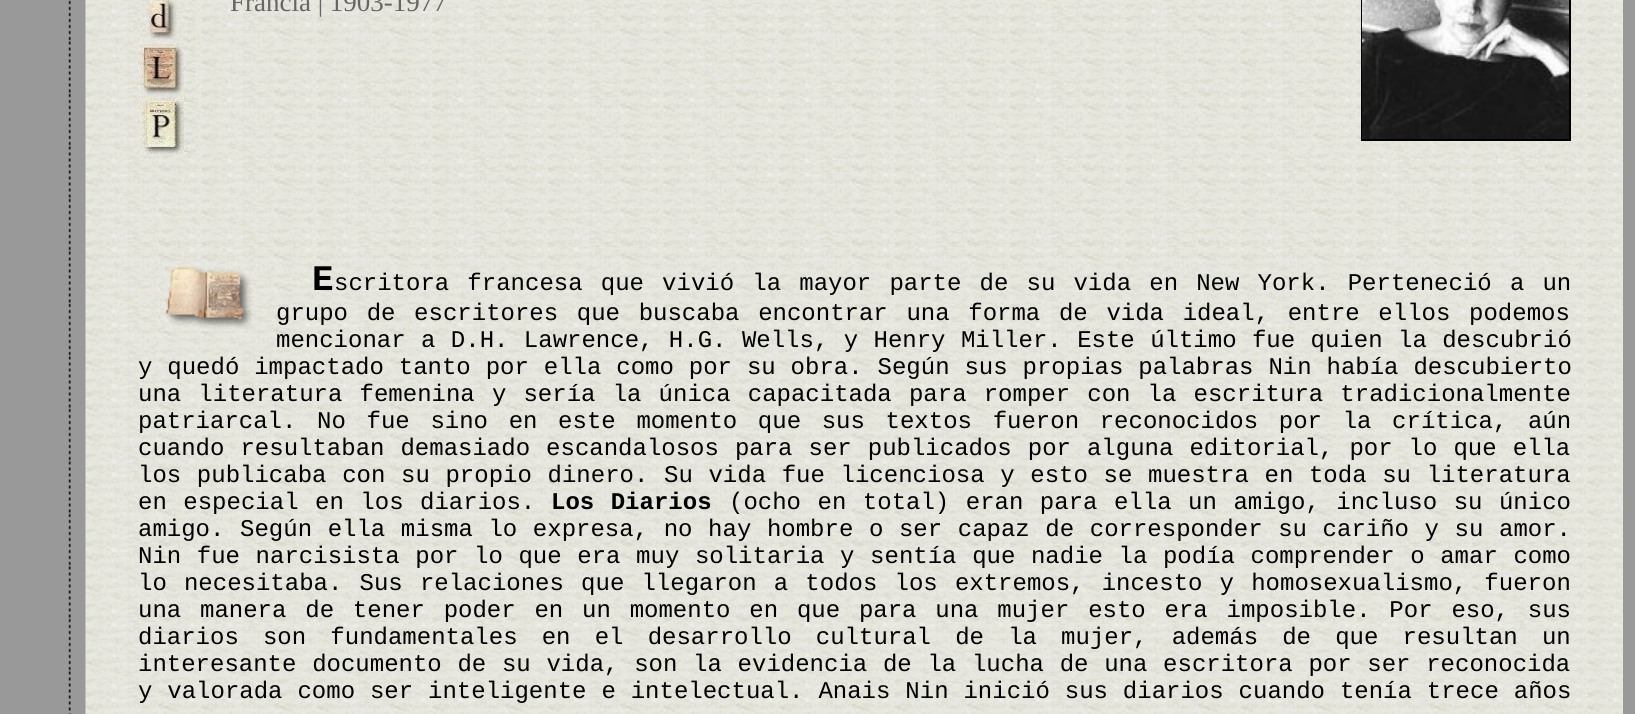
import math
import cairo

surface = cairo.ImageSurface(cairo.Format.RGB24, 1635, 714)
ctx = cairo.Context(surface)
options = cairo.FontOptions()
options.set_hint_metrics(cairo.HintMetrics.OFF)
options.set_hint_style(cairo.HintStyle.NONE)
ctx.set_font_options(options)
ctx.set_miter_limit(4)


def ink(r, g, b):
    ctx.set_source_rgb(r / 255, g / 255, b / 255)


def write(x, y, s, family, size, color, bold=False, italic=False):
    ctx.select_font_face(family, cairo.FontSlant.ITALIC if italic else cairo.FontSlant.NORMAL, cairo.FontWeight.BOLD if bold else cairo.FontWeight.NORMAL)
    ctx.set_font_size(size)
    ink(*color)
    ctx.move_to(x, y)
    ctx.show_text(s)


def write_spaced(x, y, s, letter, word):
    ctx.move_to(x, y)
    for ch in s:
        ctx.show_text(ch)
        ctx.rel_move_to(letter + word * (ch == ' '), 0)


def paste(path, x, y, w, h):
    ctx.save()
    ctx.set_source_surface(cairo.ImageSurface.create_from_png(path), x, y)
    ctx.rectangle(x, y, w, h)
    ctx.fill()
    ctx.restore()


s1 = dict(family="Liberation Serif", size=27, color=(102, 102, 102))
s2 = dict(family="Liberation Mono", size=36, color=(0, 0, 0), bold=True)

ink(153, 153, 153)
ctx.paint()
paste("pic1.png", 68, 0, 3, 714)
paste("pic2.png", 85, 0, 1538, 714)
paste("pic3.png", 138, 0, 60, 154)
write(230, 11, "Francia | 1903-1977", **s1)
ctx.rectangle(1362, -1, 208, 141)
ink(0, 0, 0)
ctx.stroke()
paste("pic4.png", 1362, 0, 207, 139)
paste("pic5.png", 160, 259, 94, 72)
write(312, 290, "E", **s2)
ctx.select_font_face("Liberation Mono")
ctx.set_font_size(24)
write_spaced(334, 290, "scritora francesa que vivió la mayor parte de su vida en New York. Perteneció a un", 0, 3.75)
write_spaced(276, 320, "grupo de escritores que buscaba encontrar una forma de vida ideal, entre ellos podemos", 0, 4.25)
write_spaced(276, 347, "mencionar a D.H. Lawrence, H.G. Wells, y Henry Miller. Este último fue quien la descubrió", 0, 1)
write_spaced(138, 374, "y quedó impactado tanto por ella como por su obra. Según sus propias palabras Nin había descubierto", 0, 0.5)
write_spaced(138, 401, "una literatura femenina y sería la única capacitada para romper con la escritura tradicionalmente", 0, 2.75)
write_spaced(138, 428, "patriarcal. No fue sino en este momento que sus textos fueron reconocidos por la crítica, aún", 0, 6.25)
write_spaced(138, 455, "cuando resultaban demasiado escandalosos para ser publicados por alguna editorial, por lo que ella", 0, 1.6)
write_spaced(138, 482, "los publicaba con su propio dinero. Su vida fue licenciosa y esto se muestra en toda su literatura", 0, 1.25)
write_spaced(138, 509, "en especial en los diarios.", 0, 2.1)
ctx.select_font_face("Liberation Mono", cairo.FontSlant.NORMAL, cairo.FontWeight.BOLD)
write_spaced(551, 509, "Los Diarios", 0, 2.1)
ctx.select_font_face("Liberation Mono")
write_spaced(729, 509, "(ocho en total) eran para ella un amigo, incluso su único", 0, 2.1)
write_spaced(138, 536, "amigo. Según ella misma lo expresa, no hay hombre o ser capaz de corresponder su cariño y su amor.", 0, 1.2)
write_spaced(138, 563, "Nin fue narcisista por lo que era muy solitaria y sentía que nadie la podía comprender o amar como", 0, 1.2)
write_spaced(138, 590, "lo necesitaba. Sus relaciones que llegaron a todos los extremos, incesto y homosexualismo, fueron", 0, 2.75)
write_spaced(138, 617, "una manera de tener poder en un momento en que para una mujer esto era imposible. Por eso, sus", 0, 4.4)
write_spaced(138, 644, "diarios son fundamentales en el desarrollo cultural de la mujer, además de que resultan un", 0, 9.75)
write_spaced(138, 671, "interesante documento de su vida, son la evidencia de la lucha de una escritora por ser reconocida", 0, 1.3)
write_spaced(138, 698, "y valorada como ser inteligente e intelectual. Anais Nin inició sus diarios cuando tenía trece años", 0, 0.5)
surface.write_to_png("screenshot.png")
